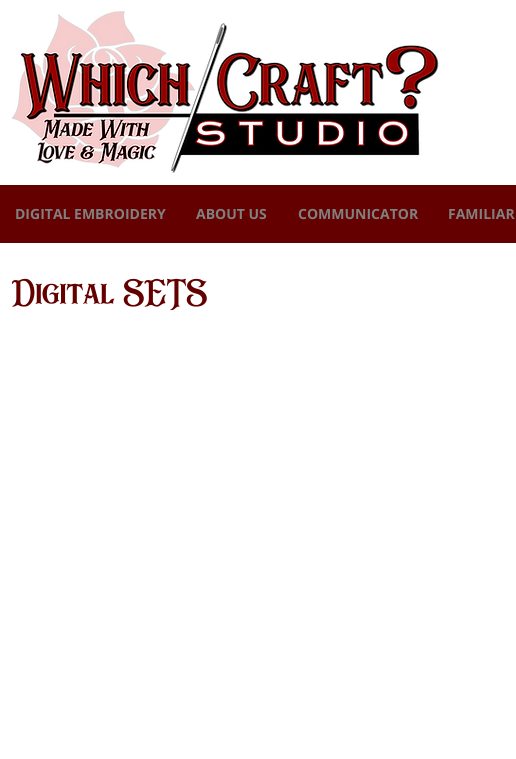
import math
import cairo

surface = cairo.ImageSurface(cairo.Format.RGB24, 516, 759)
ctx = cairo.Context(surface)
options = cairo.FontOptions()
options.set_hint_metrics(cairo.HintMetrics.OFF)
options.set_hint_style(cairo.HintStyle.NONE)
ctx.set_font_options(options)
ctx.set_miter_limit(4)


def ink(r, g, b):
    ctx.set_source_rgb(r / 255, g / 255, b / 255)


def write(x, y, s, family, size, color, bold=False, italic=False):
    ctx.select_font_face(family, cairo.FontSlant.ITALIC if italic else cairo.FontSlant.NORMAL, cairo.FontWeight.BOLD if bold else cairo.FontWeight.NORMAL)
    ctx.set_font_size(size)
    ink(*color)
    ctx.move_to(x, y)
    ctx.show_text(s)


def block(x, y, w, h, *color):
    ink(*color)
    ctx.rectangle(x, y, w, h)
    ctx.fill()


def paste(path, x, y, w, h):
    ctx.save()
    ctx.set_source_surface(cairo.ImageSurface.create_from_png(path), x, y)
    ctx.rectangle(x, y, w, h)
    ctx.fill()
    ctx.restore()


s1 = dict(family="Open Sans", size=14, color=(128, 128, 128), bold=True)
s2 = dict(family="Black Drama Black", size=35, color=(100, 0, 0))

ink(255, 255, 255)
ctx.paint()
paste("pic1.png", 11, 10, 428, 163)
block(0, 185, 516, 58, 100, 0, 0)
write(15, 219, "DIGITAL EMBROIDERY", **s1)
write(196, 219, "ABOUT US", **s1)
write(298, 219, "COMMUNICATOR", **s1)
write(448, 219, "FAMILIAR", **s1)
write(12, 301, "Digital SETS", **s2)
surface.write_to_png("screenshot.png")
